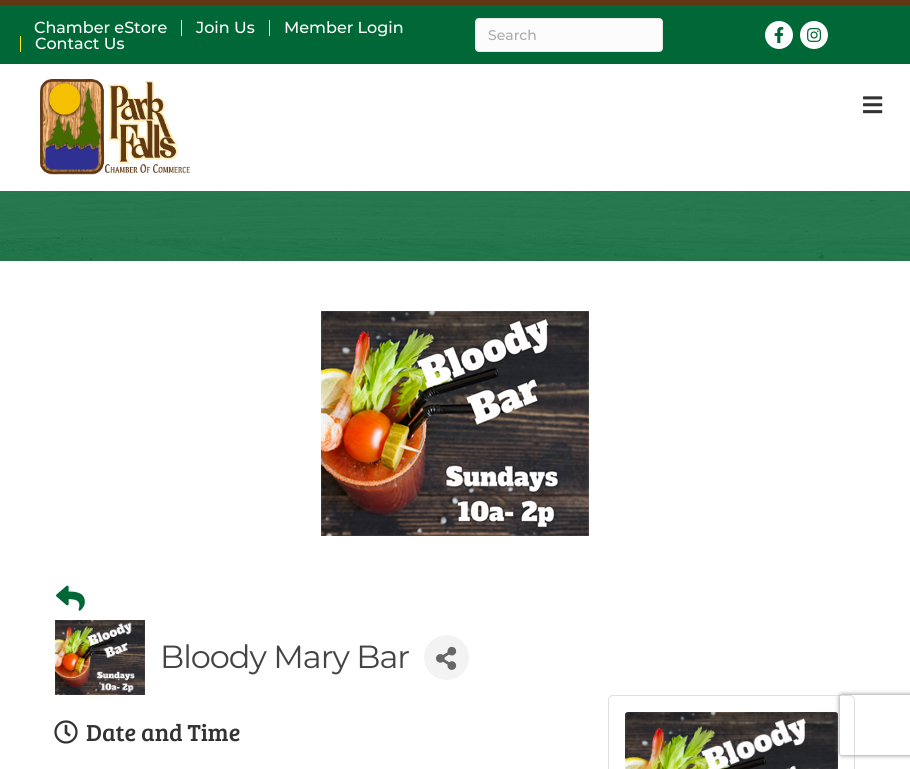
import math
import cairo

surface = cairo.ImageSurface(cairo.Format.RGB24, 910, 769)
ctx = cairo.Context(surface)
options = cairo.FontOptions()
options.set_hint_metrics(cairo.HintMetrics.OFF)
options.set_hint_style(cairo.HintStyle.NONE)
ctx.set_font_options(options)
ctx.set_miter_limit(4)


def ink(r, g, b):
    ctx.set_source_rgb(r / 255, g / 255, b / 255)


def write(x, y, s, family, size, color, bold=False, italic=False):
    ctx.select_font_face(family, cairo.FontSlant.ITALIC if italic else cairo.FontSlant.NORMAL, cairo.FontWeight.BOLD if bold else cairo.FontWeight.NORMAL)
    ctx.set_font_size(size)
    ink(*color)
    ctx.move_to(x, y)
    ctx.show_text(s)


def write_spaced(x, y, s, letter, word):
    ctx.move_to(x, y)
    for ch in s:
        ctx.show_text(ch)
        ctx.rel_move_to(letter + word * (ch == ' '), 0)


def block(x, y, w, h, *color):
    ink(*color)
    ctx.rectangle(x, y, w, h)
    ctx.fill()


def round_path(x, y, w, h, r):
    ctx.new_sub_path()
    for i, (u, v) in enumerate([(x + w - r, y + h - r), (x + r, y + h - r), (x + r, y + r), (x + w - r, y + r)]):
        ctx.arc(u, v, r, i * math.pi / 2, (i + 1) * math.pi / 2)
    ctx.close_path()


def blur_box(x, y, w, h, r, blur, alpha):
    ctx.push_group_with_content(cairo.Content.ALPHA)
    ctx.set_operator(cairo.Operator.SOURCE)
    for i in range(15, -16, -2):
        e = blur * i / 6
        if min(w, h) + 2 * e > 0:
            ctx.set_source_rgba(0, 0, 0, alpha * math.erfc((i - 1) / 8.5) / 2)
            round_path(x - e, y - e, w + 2 * e, h + 2 * e, max(0, min(r + e + blur * .6, min(w, h) / 2 + e)))
            ctx.fill()
    ctx.mask(ctx.pop_group())


def paste(path, x, y, w, h):
    ctx.save()
    ctx.set_source_surface(cairo.ImageSurface.create_from_png(path), x, y)
    ctx.rectangle(x, y, w, h)
    ctx.fill()
    ctx.restore()


s1 = dict(family="Montserrat Medium", size=16, color=(255, 255, 255))
s2 = dict(family="Montserrat Medium", size=14, color=(172, 172, 172))
s3 = dict(family="Bree Serif", size=24, color=(51, 51, 51))

ink(255, 255, 255)
ctx.paint()
block(0, 5, 910, 59, 0, 104, 55)
block(0, 0, 910, 5, 96, 56, 19)
write(34, 33, "Chamber eStore", **s1)
block(181, 20, 1, 16, 252, 238, 33)
write(196, 33, "Join Us", **s1)
block(269, 20, 1, 16, 252, 238, 33)
write(284, 33, "Member Login", **s1)
block(20, 36, 1, 16, 252, 238, 33)
write(35, 49, "Contact Us", **s1)
ink(252, 252, 252)
round_path(475.5, 18.5, 187, 33, 3.5)
ctx.fill_preserve()
ink(230, 230, 230)
ctx.set_line_width(1)
ctx.stroke()
write(488, 40, "Search", **s2)
ink(255, 255, 255)
ctx.new_path()
ctx.arc(779, 35, 14, 0, 2 * math.pi)
ctx.fill()
paste("pic1.png", 774, 27, 10, 16)
ctx.arc(814, 35, 14, 0, 2 * math.pi)
ctx.fill()
paste("pic2.png", 807, 28, 15, 14)
paste("pic3.png", 40, 79, 150, 96)
paste("pic4.png", 863, 96, 20, 18)
paste("pic5.png", 0, 191, 910, 70)
paste("pic6.png", 321, 311, 268, 225)
paste("pic7.png", 56, 585, 29, 26)
paste("pic8.png", 55, 620, 90, 75)
ctx.select_font_face("Montserrat")
ctx.set_font_size(32)
ink(68, 68, 68)
write_spaced(160, 668, "Bloody Mary Bar", -1, 0)
ink(243, 243, 243)
ctx.new_path()
ctx.arc(446.5, 657.5, 22.5, 0, 2 * math.pi)
ctx.fill()
paste("pic9.png", 436, 646, 21, 24)
paste("pic10.png", 54, 720, 24, 24)
write(86, 741, "Date and Time", **s3)
round_path(608.5, 695.5, 246, 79, 4.5)
ink(223, 223, 223)
ctx.stroke()
paste("pic11.png", 625, 712, 213, 57)
ctx.save()
ctx.set_fill_rule(cairo.FillRule.EVEN_ODD)
ctx.new_path()
ctx.move_to(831, 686)
ctx.line_to(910, 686)
ctx.line_to(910, 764)
ctx.line_to(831, 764)
ctx.close_path()
ctx.move_to(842, 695)
ctx.line_to(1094, 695)
ctx.curve_to(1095, 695, 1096, 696, 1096, 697)
ctx.line_to(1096, 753)
ctx.curve_to(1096, 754, 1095, 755, 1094, 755)
ctx.line_to(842, 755)
ctx.curve_to(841, 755, 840, 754, 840, 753)
ctx.line_to(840, 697)
ctx.curve_to(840, 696, 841, 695, 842, 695)
ctx.close_path()
ctx.clip()
ink(128, 128, 128)
blur_box(840, 695, 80, 60, 2, 2.5, 1)
ctx.restore()
surface.write_to_png("screenshot.png")
